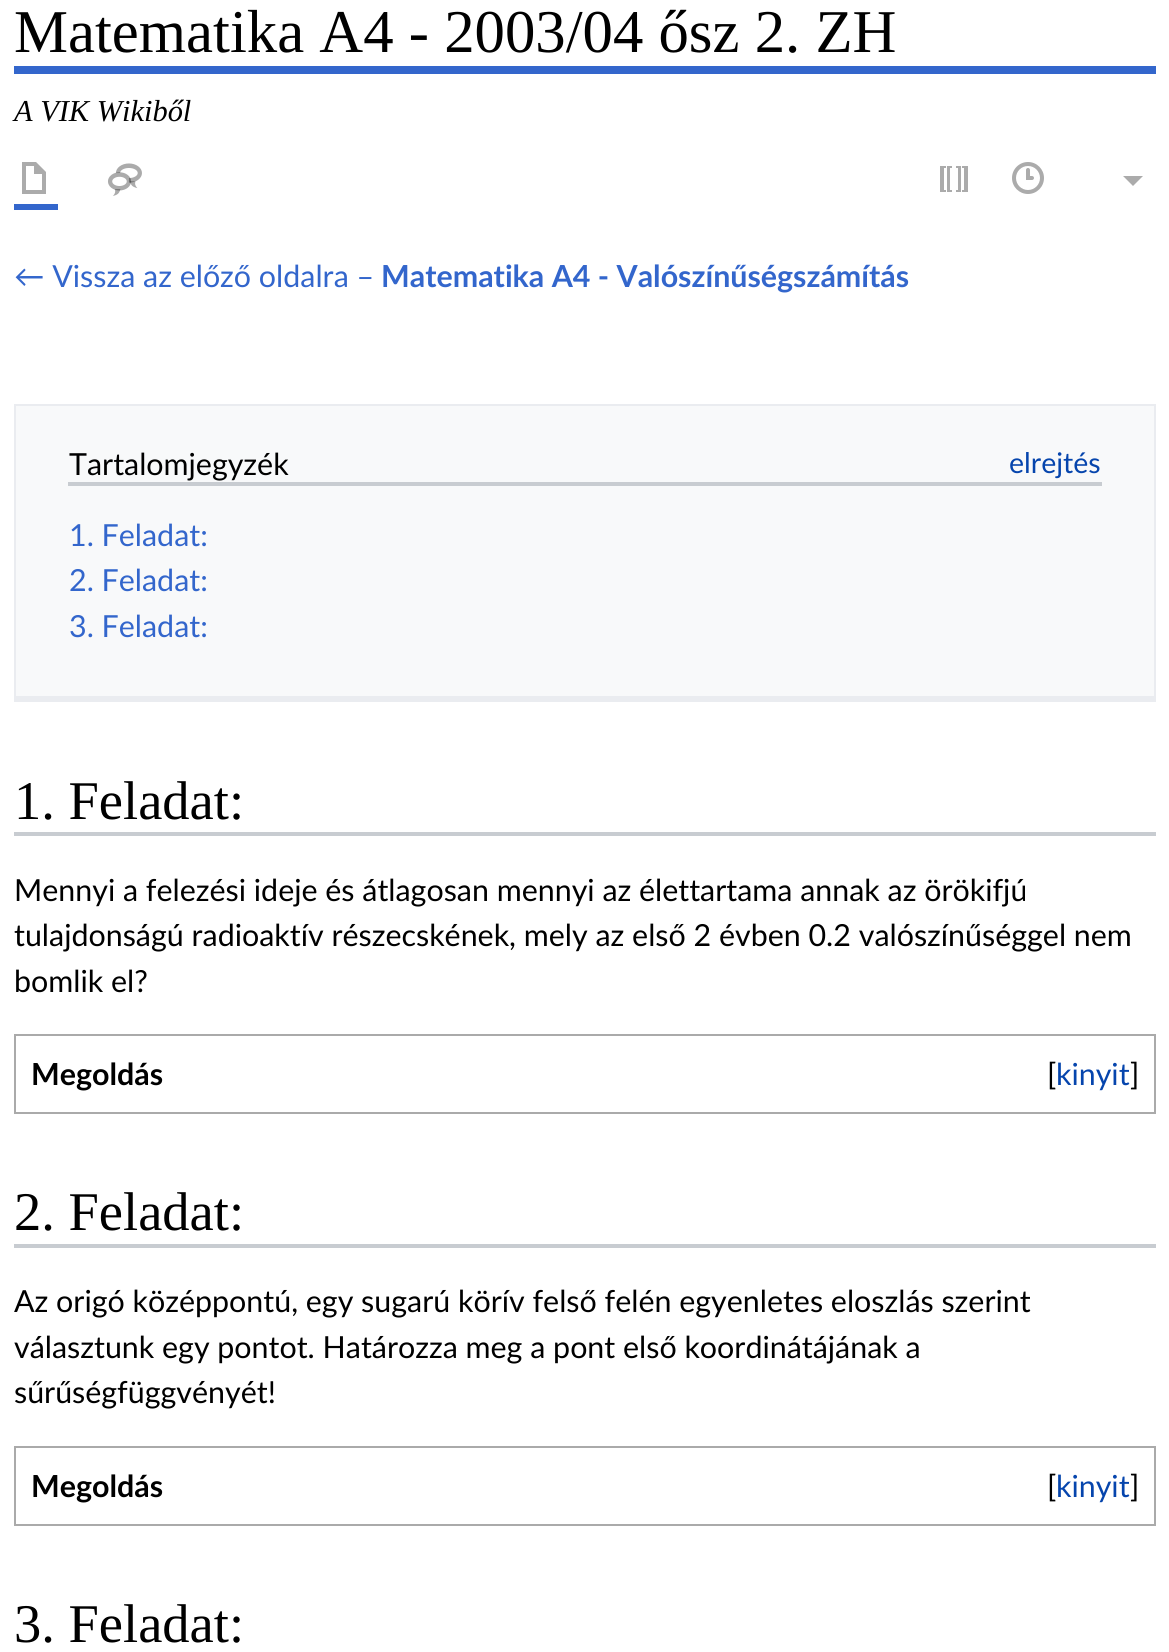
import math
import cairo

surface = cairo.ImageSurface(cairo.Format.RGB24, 1169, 1652)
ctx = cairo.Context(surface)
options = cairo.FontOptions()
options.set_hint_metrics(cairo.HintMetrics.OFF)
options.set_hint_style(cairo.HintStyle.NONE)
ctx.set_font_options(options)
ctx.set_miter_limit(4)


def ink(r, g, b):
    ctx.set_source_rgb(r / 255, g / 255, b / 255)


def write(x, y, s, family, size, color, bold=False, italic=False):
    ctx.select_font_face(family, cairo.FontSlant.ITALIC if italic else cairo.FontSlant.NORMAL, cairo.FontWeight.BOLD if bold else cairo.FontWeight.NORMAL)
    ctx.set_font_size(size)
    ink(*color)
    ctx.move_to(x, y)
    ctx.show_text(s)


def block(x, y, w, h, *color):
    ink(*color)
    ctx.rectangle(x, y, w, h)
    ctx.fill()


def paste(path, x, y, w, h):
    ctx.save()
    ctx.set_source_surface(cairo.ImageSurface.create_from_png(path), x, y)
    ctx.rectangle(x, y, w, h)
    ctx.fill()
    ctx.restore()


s1 = dict(family="Liberation Serif", size=60.75, color=(0, 0, 0))
s2 = dict(family="Liberation Serif", size=30.4, color=(0, 0, 0), italic=True)
s3 = dict(family="Lato", size=30.4, color=(51, 102, 204))
s4 = dict(family="Lato", size=30.4, color=(51, 102, 204), bold=True)
s5 = dict(family="Lato", size=30.4, color=(0, 0, 0))
s6 = dict(family="Lato", size=28.5, color=(6, 69, 173))
s7 = dict(family="Liberation Serif", size=54.5, color=(0, 0, 0))
s8 = dict(family="Lato", size=30.4, color=(0, 0, 0), bold=True)
s9 = dict(family="Lato", size=30.4, color=(6, 69, 173))

ink(255, 255, 255)
ctx.paint()
block(14, 66, 1142, 8, 51, 102, 204)
write(14, 52, "Matematika A4 - 2003/04 ősz 2. ZH", **s1)
write(14, 121, "A VIK Wikiből", **s2)
block(14, 204, 44, 6, 51, 102, 204)
ink(171, 171, 171)
ctx.new_path()
ctx.move_to(22, 162)
ctx.line_to(22, 194)
ctx.line_to(46, 194)
ctx.line_to(46, 172)
ctx.line_to(36, 162)
ctx.close_path()
ctx.move_to(26, 166)
ctx.line_to(34, 166)
ctx.line_to(34, 174)
ctx.line_to(42, 174)
ctx.line_to(42, 190)
ctx.line_to(26, 190)
ctx.close_path()
ctx.fill()
paste("pic1.png", 108, 163, 34, 33)
paste("pic2.png", 940, 166, 28, 26)
paste("pic3.png", 1012, 162, 32, 32)
ctx.new_path()
ctx.move_to(1143, 176)
ctx.line_to(1133, 186)
ctx.line_to(1123, 176)
ctx.close_path()
ctx.fill()
write(14, 287, "← Vissza az előző oldalra –", **s3)
write(381, 287, "Matematika A4 - Valószínűségszámítás", **s4)
block(16, 406, 1138, 290, 248, 249, 250)
block(14, 404, 1142, 2, 234, 236, 240)
block(1154, 404, 2, 298, 234, 236, 240)
block(14, 696, 1142, 6, 234, 236, 240)
block(14, 404, 2, 298, 234, 236, 240)
block(68, 482, 1034, 4, 200, 204, 209)
write(69, 475, "Tartalomjegyzék", **s5)
write(1009, 473, "elrejtés", **s6)
write(69, 546, "1. Feladat:", **s3)
write(69, 591, "2. Feladat:", **s3)
write(69, 637, "3. Feladat:", **s3)
block(14, 832, 1142, 4, 200, 204, 209)
write(14, 819, "1. Feladat:", **s7)
write(14, 901, "Mennyi a felezési ideje és átlagosan mennyi az élettartama annak az örökifjú", **s5)
write(14, 946, "tulajdonságú radioaktív részecskének, mely az első 2 évben 0.2 valószínűséggel nem", **s5)
write(14, 992, "bomlik el?", **s5)
ctx.rectangle(15, 1035, 1140, 78)
ink(170, 170, 170)
ctx.stroke()
write(31, 1085, "Megoldás", **s8)
write(1047, 1085, "[", **s5)
write(1056, 1085, "kinyit", **s9)
write(1130, 1085, "]", **s5)
block(14, 1244, 1142, 4, 200, 204, 209)
write(14, 1230, "2. Feladat:", **s7)
write(14, 1312, "Az origó középpontú, egy sugarú körív felső felén egyenletes eloszlás szerint", **s5)
write(14, 1358, "választunk egy pontot. Határozza meg a pont első koordinátájának a", **s5)
write(14, 1403, "sűrűségfüggvényét!", **s5)
ctx.rectangle(15, 1447, 1140, 78)
ink(170, 170, 170)
ctx.stroke()
write(31, 1497, "Megoldás", **s8)
write(1047, 1497, "[", **s5)
write(1056, 1497, "kinyit", **s9)
write(1130, 1497, "]", **s5)
write(14, 1642, "3. Feladat:", **s7)
surface.write_to_png("screenshot.png")
